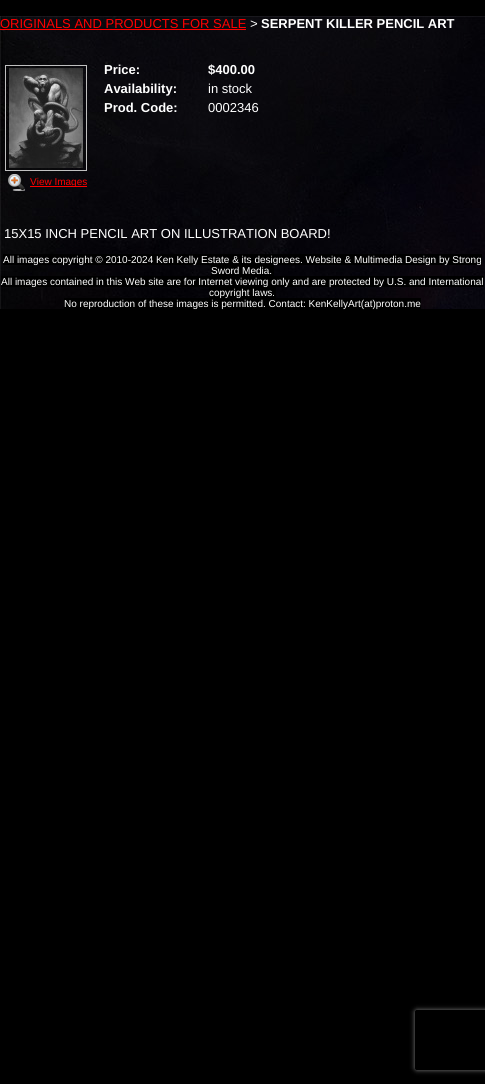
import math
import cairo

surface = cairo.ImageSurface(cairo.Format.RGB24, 485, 1084)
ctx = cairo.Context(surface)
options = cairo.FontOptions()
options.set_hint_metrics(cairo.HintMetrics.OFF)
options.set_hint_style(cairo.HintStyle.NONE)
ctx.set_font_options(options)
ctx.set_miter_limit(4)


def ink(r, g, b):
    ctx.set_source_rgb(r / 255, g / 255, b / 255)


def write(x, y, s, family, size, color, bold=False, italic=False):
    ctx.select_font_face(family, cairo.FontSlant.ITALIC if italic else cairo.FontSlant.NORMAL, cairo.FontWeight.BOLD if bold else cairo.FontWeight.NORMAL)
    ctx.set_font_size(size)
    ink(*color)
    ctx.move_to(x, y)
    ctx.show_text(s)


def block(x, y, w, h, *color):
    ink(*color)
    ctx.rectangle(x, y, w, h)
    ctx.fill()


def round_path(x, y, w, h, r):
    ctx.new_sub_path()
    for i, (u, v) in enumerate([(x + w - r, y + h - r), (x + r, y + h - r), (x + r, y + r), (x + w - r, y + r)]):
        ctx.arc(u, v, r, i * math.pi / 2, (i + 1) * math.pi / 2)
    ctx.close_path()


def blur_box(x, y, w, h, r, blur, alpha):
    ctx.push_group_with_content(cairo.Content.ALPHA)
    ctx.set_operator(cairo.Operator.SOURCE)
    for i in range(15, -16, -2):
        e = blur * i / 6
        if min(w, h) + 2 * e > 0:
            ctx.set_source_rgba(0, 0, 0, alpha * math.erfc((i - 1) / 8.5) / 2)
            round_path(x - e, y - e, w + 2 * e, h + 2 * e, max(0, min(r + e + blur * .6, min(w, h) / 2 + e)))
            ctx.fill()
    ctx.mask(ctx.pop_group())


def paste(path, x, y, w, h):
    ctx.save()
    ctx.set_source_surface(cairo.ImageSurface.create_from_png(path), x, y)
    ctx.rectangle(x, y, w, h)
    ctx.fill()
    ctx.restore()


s1 = dict(family="Liberation Sans", size=13, color=(255, 0, 0))
s2 = dict(family="Liberation Mono", size=13, color=(255, 255, 255))
s3 = dict(family="Liberation Sans", size=13, color=(255, 255, 255), bold=True)
s4 = dict(family="Liberation Sans", size=13, color=(255, 255, 255))
s5 = dict(family="Liberation Sans", size=10, color=(255, 0, 0))
s6 = dict(family="Liberation Sans", size=10, color=(255, 255, 255))

ink(0, 0, 0)
ctx.paint()
paste("pic1.png", 0, 16, 485, 293)
write(0, 28, "ORIGINALS AND PRODUCTS FOR SALE", **s1)
block(0, 29, 246, 1, 255, 0, 0)
write(250, 28, ">", **s2)
write(261, 28, "SERPENT KILLER PENCIL ART", **s3)
write(104, 74, "Price:", **s3)
write(208, 74, "$400.00", **s3)
write(104, 93, "Availability:", **s3)
write(208, 93, "in stock", **s4)
write(104, 112, "Prod. Code:", **s3)
write(208, 112, "0002346", **s4)
ctx.rectangle(5.5, 65.5, 81, 105)
ink(192, 192, 192)
ctx.set_line_width(1)
ctx.stroke()
paste("pic2.png", 9, 68, 74, 100)
paste("pic3.png", 8, 174, 17, 17)
block(30, 186, 57, 1, 255, 0, 0)
write(30, 185, "View Images", **s5)
write(4, 238, "15X15 INCH PENCIL ART ON ILLUSTRATION BOARD!", **s4)
block(3, 254, 479, 11, 0, 0, 0)
write(3, 263, "All images copyright © 2010-2024 Ken Kelly Estate & its designees. Website & Multimedia Design by Strong", **s6)
block(211, 265, 63, 11, 0, 0, 0)
write(211, 274, "Sword Media.", **s6)
block(1, 276, 483, 11, 0, 0, 0)
block(209, 287, 67, 11, 0, 0, 0)
write(1, 285, "All images contained in this Web site are for Internet viewing only and are protected by U.S. and International", **s6)
block(64, 298, 357, 11, 0, 0, 0)
write(209, 296, "copyright laws.", **s6)
write(64, 307, "No reproduction of these images is permitted. Contact: KenKellyArt(at)proton.me", **s6)
ctx.save()
ctx.set_fill_rule(cairo.FillRule.EVEN_ODD)
ctx.new_path()
ctx.move_to(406, 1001)
ctx.line_to(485, 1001)
ctx.line_to(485, 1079)
ctx.line_to(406, 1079)
ctx.close_path()
ctx.move_to(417, 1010)
ctx.line_to(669, 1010)
ctx.curve_to(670, 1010, 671, 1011, 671, 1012)
ctx.line_to(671, 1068)
ctx.curve_to(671, 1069, 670, 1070, 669, 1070)
ctx.line_to(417, 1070)
ctx.curve_to(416, 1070, 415, 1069, 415, 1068)
ctx.line_to(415, 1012)
ctx.curve_to(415, 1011, 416, 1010, 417, 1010)
ctx.close_path()
ctx.clip()
ink(128, 128, 128)
blur_box(415, 1010, 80, 60, 2, 2.5, 1)
ctx.restore()
surface.write_to_png("screenshot.png")
